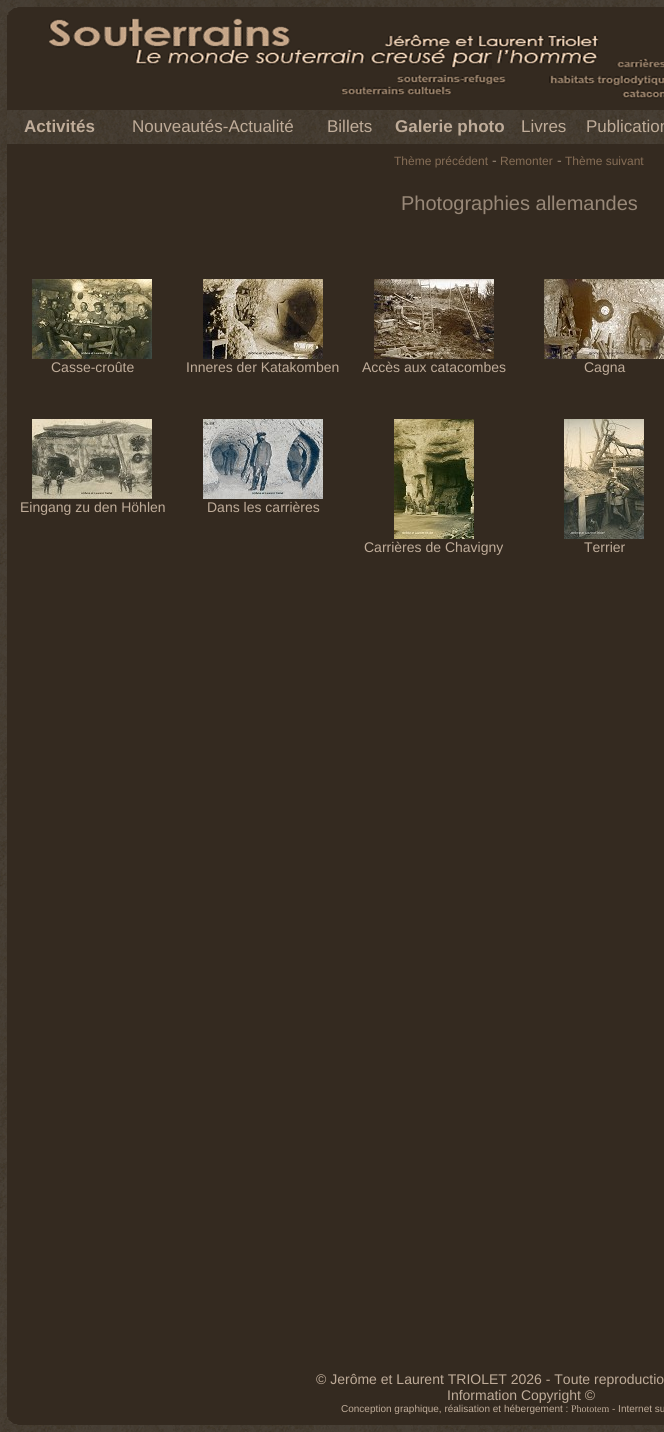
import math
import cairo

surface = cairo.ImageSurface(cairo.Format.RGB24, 664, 1432)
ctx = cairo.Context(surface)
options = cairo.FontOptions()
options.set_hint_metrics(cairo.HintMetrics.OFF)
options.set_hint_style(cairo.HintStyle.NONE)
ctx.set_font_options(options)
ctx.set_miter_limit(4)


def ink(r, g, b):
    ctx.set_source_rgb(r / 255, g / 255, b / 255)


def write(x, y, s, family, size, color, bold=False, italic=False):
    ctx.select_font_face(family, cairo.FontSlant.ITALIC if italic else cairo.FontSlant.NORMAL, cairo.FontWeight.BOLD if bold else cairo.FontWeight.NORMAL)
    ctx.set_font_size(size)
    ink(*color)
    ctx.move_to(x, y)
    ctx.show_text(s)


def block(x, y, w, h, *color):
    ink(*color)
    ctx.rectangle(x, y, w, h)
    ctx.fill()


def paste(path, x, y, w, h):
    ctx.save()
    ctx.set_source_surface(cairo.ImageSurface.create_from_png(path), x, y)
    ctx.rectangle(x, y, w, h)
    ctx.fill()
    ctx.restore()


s1 = dict(family="Liberation Sans", size=17, color=(191, 172, 153), bold=True)
s2 = dict(family="Liberation Sans", size=17, color=(191, 172, 153))
s3 = dict(family="Liberation Sans", size=12, color=(133, 109, 86))
s4 = dict(family="Liberation Sans", size=14, color=(152, 136, 120))
s5 = dict(family="Liberation Sans", size=20, color=(152, 136, 120))
s6 = dict(family="Liberation Sans", size=14, color=(191, 172, 153))
s7 = dict(family="Liberation Sans", size=10, color=(191, 172, 153))
s8 = dict(family="Liberation Serif", size=10, color=(191, 172, 153))

ink(255, 255, 255)
ctx.paint()
paste("pic1.png", 0, 0, 664, 1432)
block(7, 7, 657, 1418, 52, 42, 32)
paste("pic2.png", 7, 7, 11, 8)
paste("pic3.png", 49, 18, 615, 81)
paste("pic4.png", 7, 110, 657, 34)
write(24, 132, "Activités", **s1)
write(132, 132, "Nouveautés-Actualité", **s2)
write(327, 132, "Billets", **s2)
write(395, 132, "Galerie photo", **s1)
write(521, 132, "Livres", **s2)
write(586, 132, "Publication", **s2)
write(394, 165, "Thème précédent", **s3)
write(492, 165, "-", **s4)
write(500, 165, "Remonter", **s3)
write(557, 165, "-", **s4)
write(565, 165, "Thème suivant", **s3)
write(401, 210, "Photographies allemandes", **s5)
paste("pic5.png", 32, 279, 120, 80)
write(51, 372, "Casse-croûte", **s6)
paste("pic6.png", 203, 279, 120, 80)
write(186, 372, "Inneres der Katakomben", **s6)
paste("pic7.png", 374, 279, 120, 80)
write(362, 372, "Accès aux catacombes", **s6)
paste("pic8.png", 544, 279, 120, 80)
write(584, 372, "Cagna", **s6)
paste("pic9.png", 32, 419, 120, 80)
write(20, 512, "Eingang zu den Höhlen", **s6)
paste("pic10.png", 203, 419, 120, 80)
write(207, 512, "Dans les carrières", **s6)
paste("pic11.png", 394, 419, 80, 120)
write(364, 552, "Carrières de Chavigny", **s6)
paste("pic12.png", 564, 419, 80, 120)
write(584, 552, "Terrier", **s6)
write(316, 1384, "© Jerôme et Laurent TRIOLET 2026 - Toute reproductio", **s6)
write(447, 1400, "Information Copyright ©", **s6)
write(341, 1412, "Conception graphique, réalisation et hébergement :", **s7)
write(571, 1412, "Phototem", **s8)
write(612, 1412, "- Internet su", **s7)
paste("pic13.png", 7, 1414, 420, 11)
surface.write_to_png("screenshot.png")
